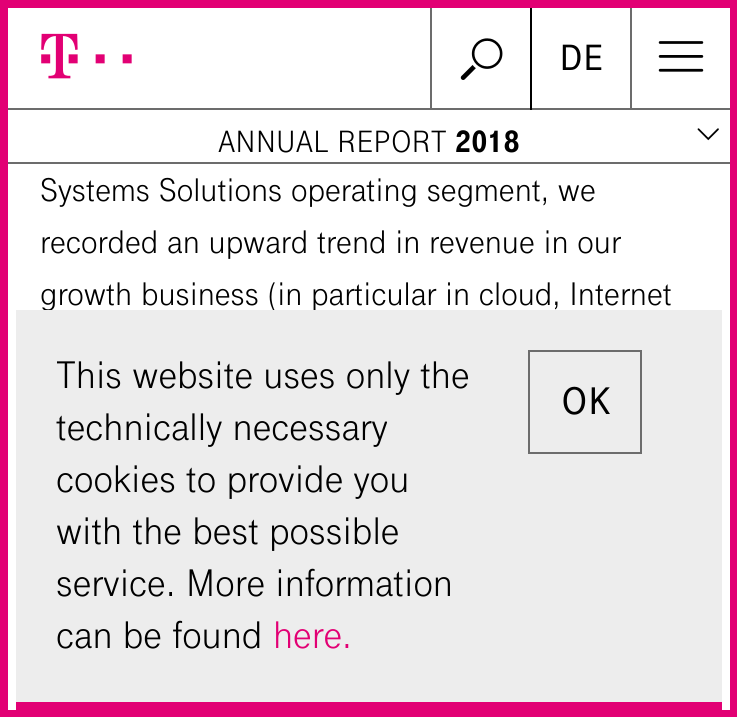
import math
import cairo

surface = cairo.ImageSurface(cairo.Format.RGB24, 737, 717)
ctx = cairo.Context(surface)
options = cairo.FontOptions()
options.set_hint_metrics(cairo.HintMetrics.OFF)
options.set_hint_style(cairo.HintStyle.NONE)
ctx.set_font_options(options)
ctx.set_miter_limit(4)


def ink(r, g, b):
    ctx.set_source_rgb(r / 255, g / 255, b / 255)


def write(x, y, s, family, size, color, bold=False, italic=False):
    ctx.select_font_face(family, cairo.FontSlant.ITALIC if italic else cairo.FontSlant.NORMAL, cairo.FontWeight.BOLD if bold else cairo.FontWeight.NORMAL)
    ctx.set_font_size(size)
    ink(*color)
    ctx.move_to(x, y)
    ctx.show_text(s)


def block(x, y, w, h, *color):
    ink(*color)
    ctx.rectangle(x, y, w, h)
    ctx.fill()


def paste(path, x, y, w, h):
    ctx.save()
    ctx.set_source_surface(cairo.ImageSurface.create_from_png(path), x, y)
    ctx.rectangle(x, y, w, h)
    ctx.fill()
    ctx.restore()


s1 = dict(family="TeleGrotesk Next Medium", size=38, color=(0, 0, 0))
s2 = dict(family="TeleGrotesk Next", size=32, color=(0, 0, 0))
s3 = dict(family="TeleGrotesk Next ExtraBold", size=32, color=(0, 0, 0))
s4 = dict(family="TeleGrotesk Next", size=34, color=(0, 0, 0))
s5 = dict(family="TeleGrotesk Next", size=40, color=(0, 0, 0))
s6 = dict(family="TeleGrotesk Next", size=40, color=(226, 0, 116))
s7 = dict(family="TeleGrotesk Next Medium", size=40, color=(0, 0, 0))

ink(255, 255, 255)
ctx.paint()
paste("pic1.png", 41, 33, 91, 46)
block(430, 8, 2, 100, 108, 108, 108)
paste("pic2.png", 460, 38, 43, 42)
block(630, 8, 2, 100, 108, 108, 108)
paste("pic3.png", 658, 41, 46, 31)
block(0, 108, 737, 2, 108, 108, 108)
block(530, 8, 2, 102, 0, 0, 0)
block(0, 162, 737, 2, 108, 108, 108)
paste("pic4.png", 697, 128, 22, 13)
ctx.rectangle(4, 4, 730, 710)
ink(226, 0, 116)
ctx.set_line_width(8)
ctx.stroke()
write(559, 70, "DE", **s1)
write(218, 152, "ANNUAL REPORT", **s2)
write(455, 152, "2018", **s3)
write(40, 201, "Systems Solutions operating segment, we", **s4)
write(40, 253, "recorded an upward trend in revenue in our", **s4)
write(40, 305, "growth business (in particular in cloud, Internet", **s4)
block(16, 310, 706, 392, 237, 237, 237)
block(16, 702, 706, 8, 226, 0, 116)
write(56, 388, "This website uses only the", **s5)
write(56, 440, "technically necessary", **s5)
write(56, 492, "cookies to provide you", **s5)
write(56, 544, "with the best possible", **s5)
write(56, 596, "service. More information", **s5)
write(56, 648, "can be found", **s5)
write(273, 648, "here.", **s6)
ctx.rectangle(529, 351, 112, 102)
ink(108, 108, 108)
ctx.set_line_width(2)
ctx.stroke()
write(561, 414, "OK", **s7)
surface.write_to_png("screenshot.png")
